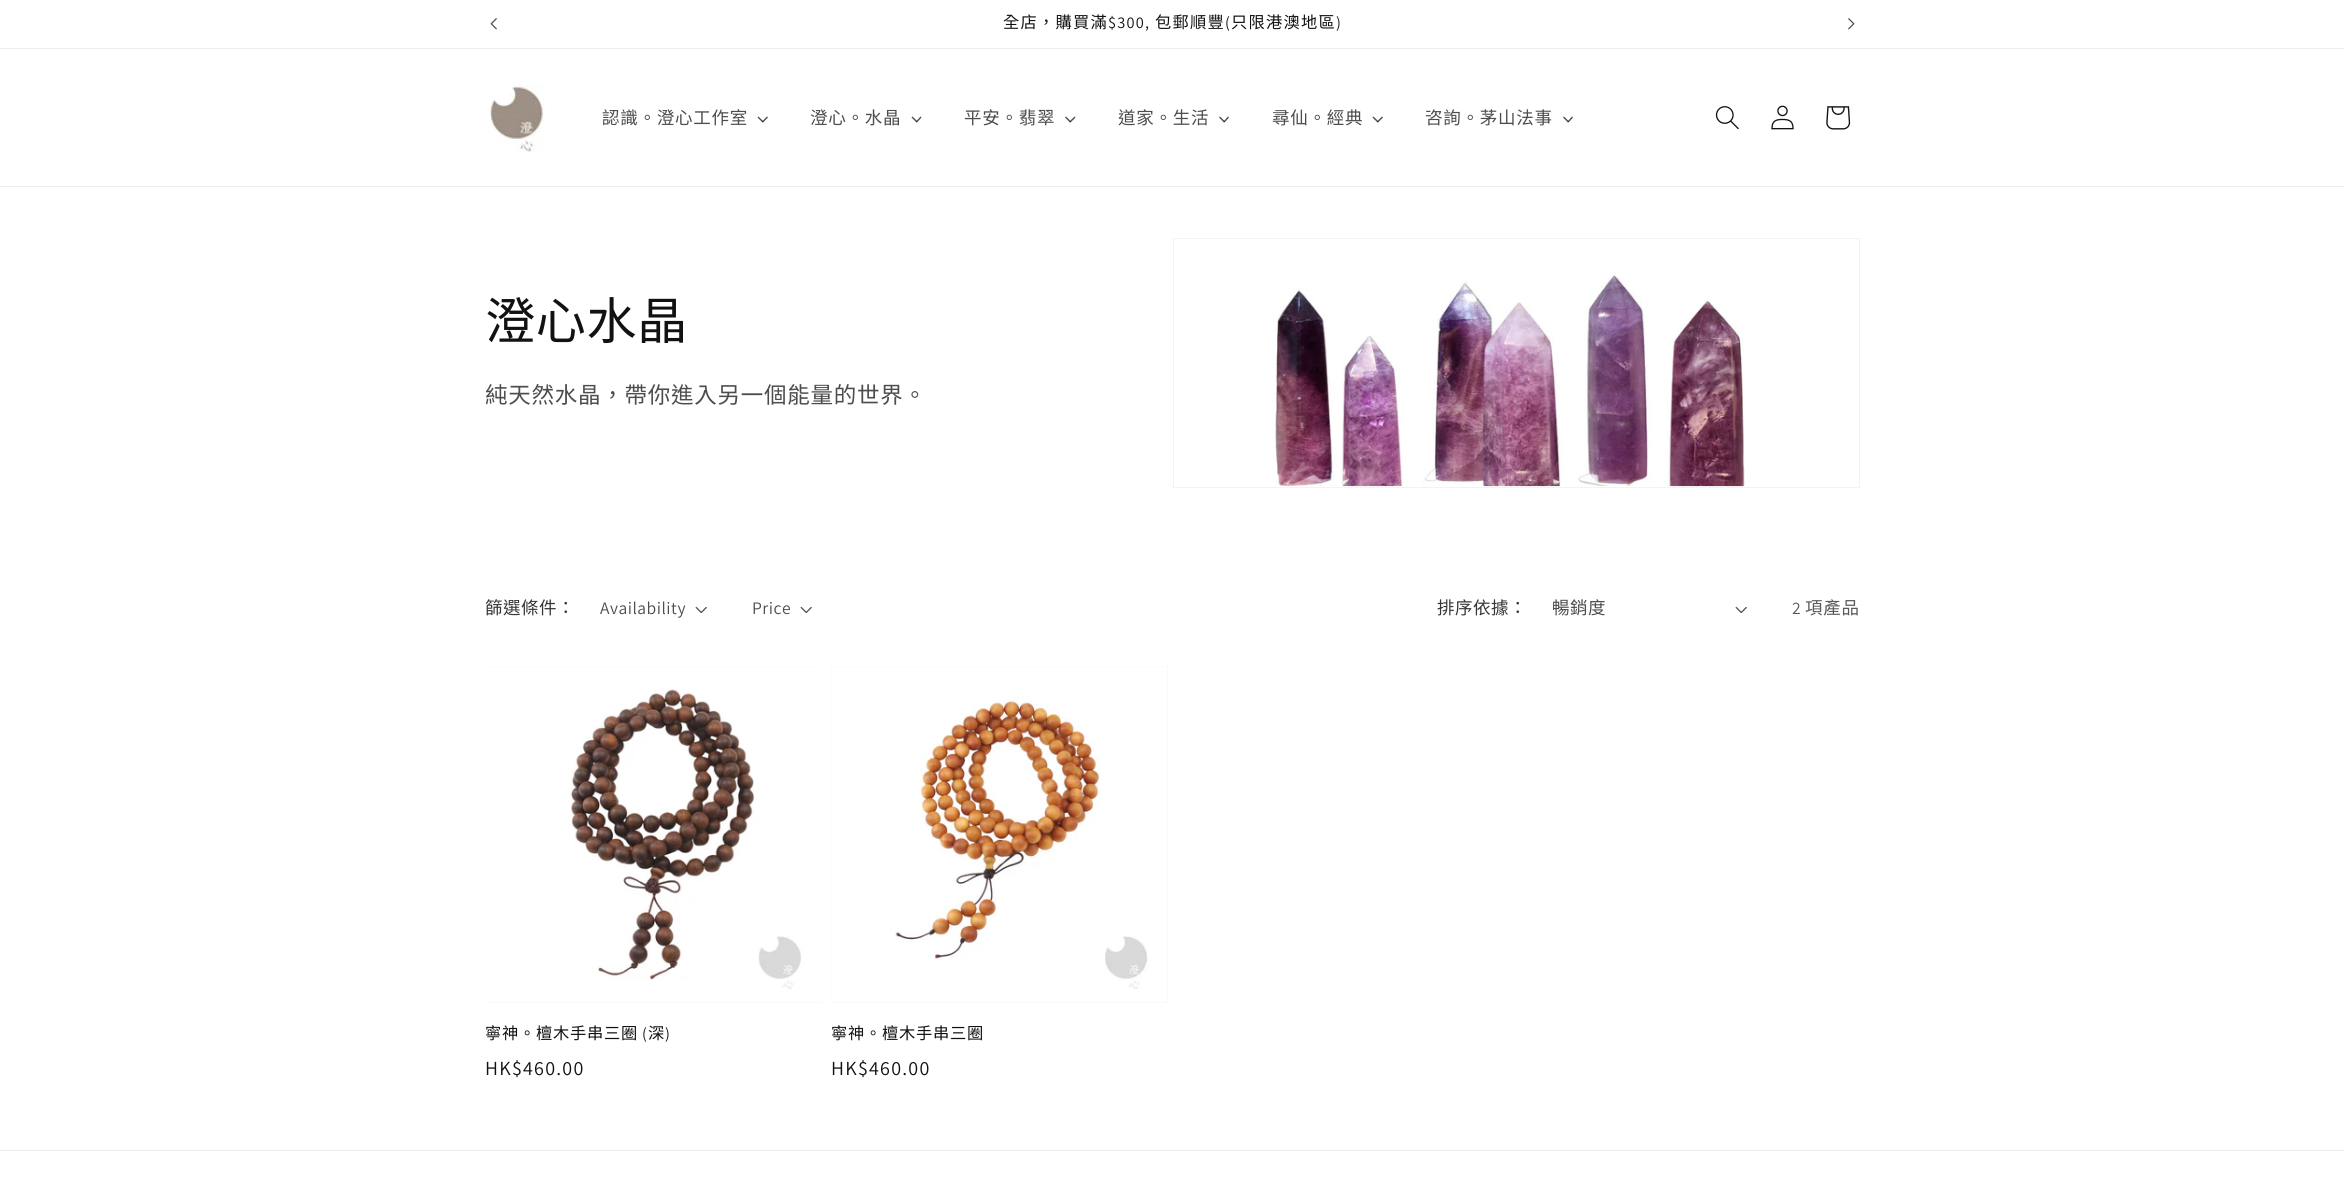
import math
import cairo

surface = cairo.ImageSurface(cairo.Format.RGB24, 2344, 1193)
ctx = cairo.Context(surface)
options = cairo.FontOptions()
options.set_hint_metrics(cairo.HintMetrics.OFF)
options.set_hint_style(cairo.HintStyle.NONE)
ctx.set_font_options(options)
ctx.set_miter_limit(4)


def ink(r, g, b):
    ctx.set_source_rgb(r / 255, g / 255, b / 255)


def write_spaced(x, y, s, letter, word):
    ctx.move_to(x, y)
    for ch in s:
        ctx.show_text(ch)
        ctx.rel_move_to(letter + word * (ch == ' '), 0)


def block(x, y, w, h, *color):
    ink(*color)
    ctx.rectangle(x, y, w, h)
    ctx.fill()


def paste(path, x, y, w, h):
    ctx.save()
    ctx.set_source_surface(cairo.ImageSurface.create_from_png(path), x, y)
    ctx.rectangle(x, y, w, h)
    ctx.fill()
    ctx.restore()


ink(255, 255, 255)
ctx.paint()
block(0, 48, 2344, 1, 236, 236, 236)
paste("pic1.png", 490, 18, 7, 12)
ctx.select_font_face("Noto Sans CJK TC")
ctx.set_font_size(16.25)
ink(18, 18, 18)
write_spaced(1003, 28, "全店，購買滿", 1.25, 0)
ctx.select_font_face("Assistant")
write_spaced(1108, 28, "$300,", 1.25, 0)
ctx.select_font_face("Noto Sans CJK TC")
write_spaced(1155, 28, "包郵順豐", 1.25, 0)
ctx.select_font_face("Assistant")
write_spaced(1225, 28, "(", 1.25, 0)
ctx.select_font_face("Noto Sans CJK TC")
write_spaced(1231, 28, "只限港澳地區", 1.25, 0)
ctx.select_font_face("Assistant")
write_spaced(1336, 28, ")", 1.25, 0)
paste("pic2.png", 1848, 18, 7, 12)
block(0, 186, 2344, 1, 236, 236, 236)
paste("pic3.png", 490, 84, 55, 69)
ctx.select_font_face("Noto Sans CJK TC")
ctx.set_font_size(17.5)
ink(77, 77, 77)
write_spaced(602, 124, "認識。澄心工作室", 0.75, 0)
ctx.new_path()
ctx.move_to(767, 116.5)
ctx.line_to(768, 117.5)
ctx.line_to(763, 122.5)
ctx.line_to(762, 121.5)
ctx.close_path()
ctx.fill()
ctx.set_source_rgba(0.071, 0.071, 0.071, 0.75)
ctx.new_path()
ctx.move_to(758.5, 116.5)
ctx.line_to(763.5, 121.5)
ctx.line_to(762.5, 122.5)
ctx.line_to(757.5, 117.5)
ctx.close_path()
ctx.fill()
ink(77, 77, 77)
write_spaced(810, 124, "澄心。水晶", 0.75, 0)
ctx.new_path()
ctx.move_to(920.5, 116.5)
ctx.line_to(921.5, 117.5)
ctx.line_to(917, 122.5)
ctx.line_to(916, 121.5)
ctx.close_path()
ctx.fill()
ctx.set_source_rgba(0.071, 0.071, 0.071, 0.75)
ctx.new_path()
ctx.move_to(912.5, 116.5)
ctx.line_to(917.5, 121.5)
ctx.line_to(916.5, 122.5)
ctx.line_to(911.5, 117.5)
ctx.close_path()
ctx.fill()
ink(77, 77, 77)
write_spaced(964, 124, "平安。翡翠", 0.75, 0)
ctx.new_path()
ctx.move_to(1074.5, 116.5)
ctx.line_to(1075.5, 117.5)
ctx.line_to(1070.5, 122.5)
ctx.line_to(1069.5, 121.5)
ctx.close_path()
ctx.fill()
ctx.set_source_rgba(0.071, 0.071, 0.071, 0.75)
ctx.new_path()
ctx.move_to(1066, 116.5)
ctx.line_to(1071, 121.5)
ctx.line_to(1070, 122.5)
ctx.line_to(1065, 117.5)
ctx.close_path()
ctx.fill()
ink(77, 77, 77)
write_spaced(1118, 124, "道家。生活", 0.75, 0)
ctx.new_path()
ctx.move_to(1228, 116.5)
ctx.line_to(1229, 117.5)
ctx.line_to(1224.5, 122.5)
ctx.line_to(1223.5, 121.5)
ctx.close_path()
ctx.fill()
ctx.set_source_rgba(0.071, 0.071, 0.071, 0.75)
ctx.new_path()
ctx.move_to(1220, 116.5)
ctx.line_to(1225, 121.5)
ctx.line_to(1224, 122.5)
ctx.line_to(1219, 117.5)
ctx.close_path()
ctx.fill()
ink(77, 77, 77)
write_spaced(1272, 124, "尋仙。經典", 0.75, 0)
ctx.new_path()
ctx.move_to(1382, 116.5)
ctx.line_to(1383, 117.5)
ctx.line_to(1378, 122.5)
ctx.line_to(1377, 121.5)
ctx.close_path()
ctx.fill()
ctx.set_source_rgba(0.071, 0.071, 0.071, 0.75)
ctx.new_path()
ctx.move_to(1373.5, 116.5)
ctx.line_to(1378.5, 121.5)
ctx.line_to(1377.5, 122.5)
ctx.line_to(1372.5, 117.5)
ctx.close_path()
ctx.fill()
ink(77, 77, 77)
write_spaced(1425, 124, "咨詢。茅山法事", 0.75, 0)
ctx.new_path()
ctx.move_to(1572, 116.5)
ctx.line_to(1573, 117.5)
ctx.line_to(1568.5, 122.5)
ctx.line_to(1567.5, 121.5)
ctx.close_path()
ctx.fill()
ctx.set_source_rgba(0.071, 0.071, 0.071, 0.75)
ctx.new_path()
ctx.move_to(1564, 116.5)
ctx.line_to(1569, 121.5)
ctx.line_to(1568, 122.5)
ctx.line_to(1563, 117.5)
ctx.close_path()
ctx.fill()
paste("pic4.png", 1715, 106, 24, 24)
paste("pic5.png", 1771, 105, 23, 25)
paste("pic6.png", 1826, 106, 25, 24)
ctx.set_font_size(50)
ink(18, 18, 18)
write_spaced(485, 339, "澄心水晶", 0.75, 0)
ctx.set_font_size(22.5)
ink(77, 77, 77)
write_spaced(485, 403, "純天然水晶，帶你進入另一個能量的世界。", 0.75, 0)
ctx.rectangle(1173.5, 238.5, 686, 249)
ink(243, 243, 243)
ctx.set_line_width(1)
ctx.stroke()
paste("pic7.png", 1275, 274, 470, 213)
ctx.set_font_size(17.5)
ink(54, 54, 54)
write_spaced(485, 614, "篩選條件：", 0.5, 0)
ctx.select_font_face("Assistant")
ink(77, 77, 77)
write_spaced(600, 614, "Availability", 0.5, 0)
paste("pic8.png", 695, 606, 12, 8)
write_spaced(752, 614, "Price", 0.5, 0)
paste("pic8.png", 800, 606, 12, 8)
ctx.select_font_face("Noto Sans CJK TC")
ink(54, 54, 54)
write_spaced(1437, 614, "排序依據：", 0.5, 0)
ink(77, 77, 77)
write_spaced(1552, 614, "暢銷度", 0.5, 0)
paste("pic8.png", 1735, 606, 12, 8)
ctx.select_font_face("Assistant")
ink(89, 89, 89)
write_spaced(1792, 614, "2", 0.75, 0)
ctx.select_font_face("Noto Sans CJK TC")
write_spaced(1805, 614, "項產品", 0.75, 0)
block(485, 666, 336, 337, 243, 243, 243)
paste("pic9.png", 485, 666, 336, 337)
ctx.set_font_size(16.25)
ink(18, 18, 18)
write_spaced(485, 1039, "寧神。檀木手串三圈", 0.75, 0)
ctx.select_font_face("Assistant")
write_spaced(642, 1039, "(", 0.75, 0)
ctx.select_font_face("Noto Sans CJK TC")
write_spaced(648, 1039, "深", 0.75, 0)
ctx.select_font_face("Assistant")
write_spaced(665, 1039, ")", 0.75, 0)
ctx.set_font_size(20)
write_spaced(485, 1075, "HK$460.00", 1.25, 0)
block(831, 666, 337, 337, 243, 243, 243)
paste("pic10.png", 831, 666, 337, 337)
ctx.select_font_face("Noto Sans CJK TC")
ctx.set_font_size(16.25)
ink(18, 18, 18)
write_spaced(831, 1039, "寧神。檀木手串三圈", 0.75, 0)
ctx.select_font_face("Assistant")
ctx.set_font_size(20)
write_spaced(831, 1075, "HK$460.00", 1.25, 0)
block(0, 1150, 2344, 1, 236, 236, 236)
surface.write_to_png("screenshot.png")
